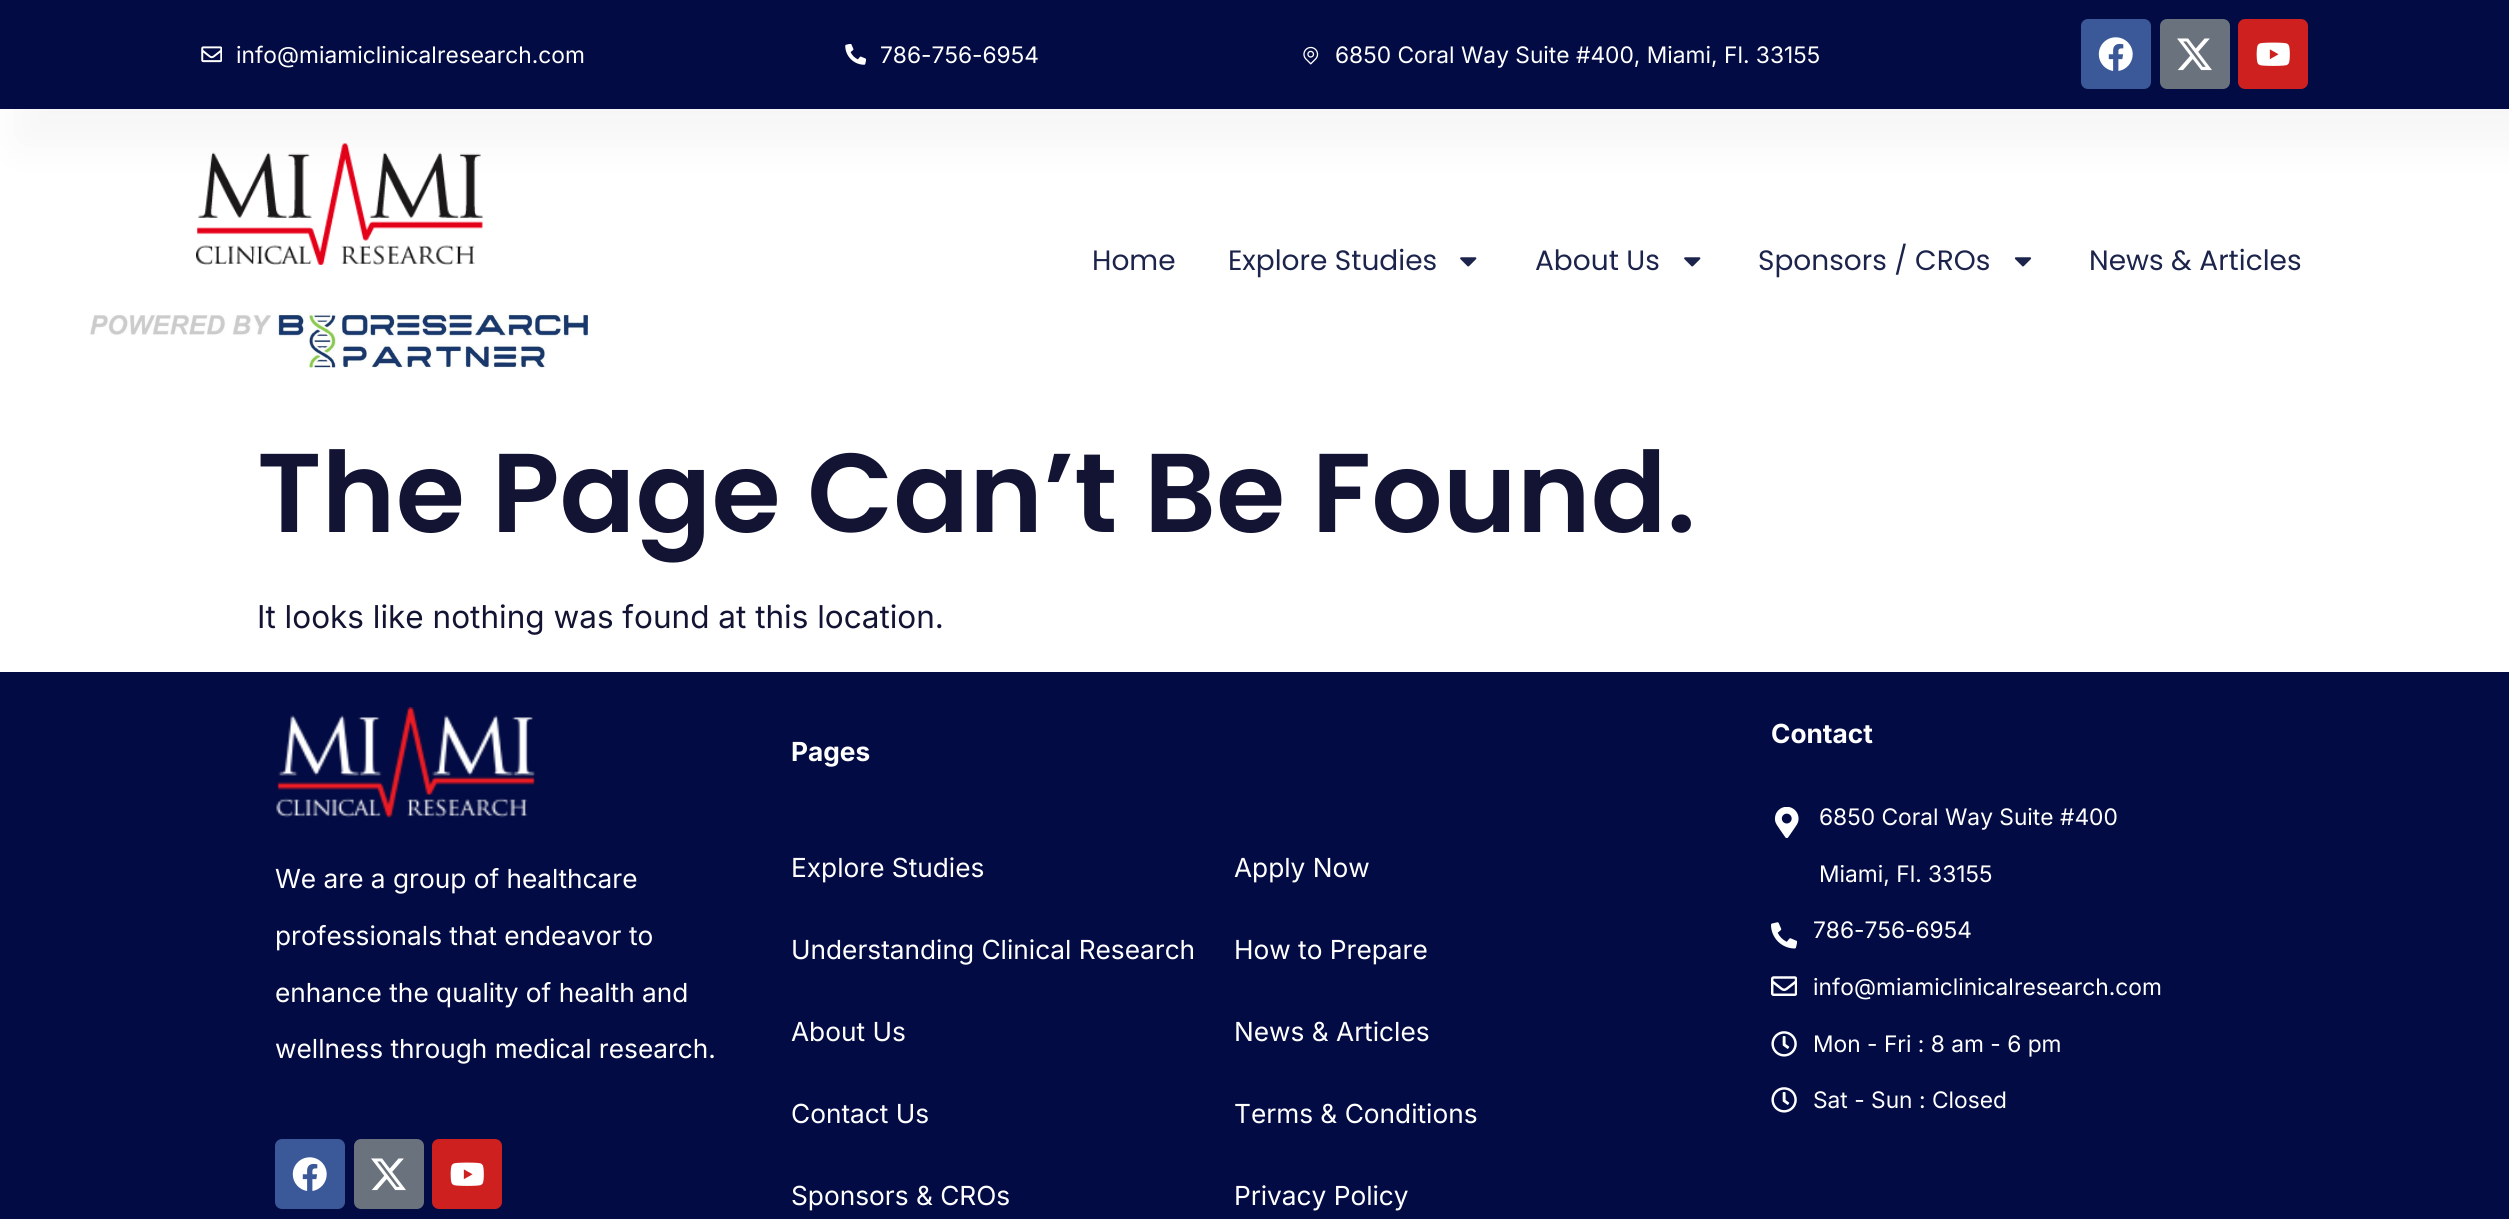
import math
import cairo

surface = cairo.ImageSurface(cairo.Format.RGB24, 2509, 1219)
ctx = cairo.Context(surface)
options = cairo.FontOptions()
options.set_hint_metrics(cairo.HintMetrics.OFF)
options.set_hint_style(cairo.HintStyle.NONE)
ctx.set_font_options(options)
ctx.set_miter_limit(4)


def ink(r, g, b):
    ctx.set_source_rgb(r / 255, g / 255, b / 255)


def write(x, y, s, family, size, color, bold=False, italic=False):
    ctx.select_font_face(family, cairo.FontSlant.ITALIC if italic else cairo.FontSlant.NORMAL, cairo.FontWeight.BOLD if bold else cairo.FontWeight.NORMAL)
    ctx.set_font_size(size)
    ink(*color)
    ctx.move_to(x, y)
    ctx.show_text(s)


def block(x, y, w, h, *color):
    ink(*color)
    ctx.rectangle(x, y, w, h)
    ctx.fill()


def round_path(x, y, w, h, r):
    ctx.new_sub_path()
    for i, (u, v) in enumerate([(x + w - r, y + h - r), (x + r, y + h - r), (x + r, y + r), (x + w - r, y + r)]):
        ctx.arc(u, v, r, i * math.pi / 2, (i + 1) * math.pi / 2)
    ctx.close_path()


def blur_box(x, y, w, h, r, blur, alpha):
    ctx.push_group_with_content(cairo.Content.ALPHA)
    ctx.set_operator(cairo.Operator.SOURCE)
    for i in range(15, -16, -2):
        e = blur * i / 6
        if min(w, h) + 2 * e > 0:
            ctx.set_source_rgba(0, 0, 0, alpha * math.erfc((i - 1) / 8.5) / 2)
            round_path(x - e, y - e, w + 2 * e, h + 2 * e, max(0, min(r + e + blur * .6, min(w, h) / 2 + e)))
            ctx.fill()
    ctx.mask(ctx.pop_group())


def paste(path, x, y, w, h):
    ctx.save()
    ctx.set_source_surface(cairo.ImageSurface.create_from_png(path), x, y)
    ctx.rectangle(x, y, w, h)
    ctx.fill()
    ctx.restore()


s1 = dict(family="Inter", size=22.75, color=(255, 255, 255))
s2 = dict(family="Poppins", size=28, color=(28, 36, 75))
s3 = dict(family="Poppins SemiBold", size=112, color=(19, 20, 51))
s4 = dict(family="Inter", size=31.5, color=(19, 20, 51))
s5 = dict(family="Inter", size=26.25, color=(255, 255, 255))
s6 = dict(family="Inter", size=26.25, color=(255, 255, 255), bold=True)

ink(255, 255, 255)
ctx.paint()
paste("pic7.png", 196, 143, 287, 122)
ink(0, 0, 0)
blur_box(18, 18, 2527, 126, 0, 26, 0.04)
block(0, 0, 2509, 109, 2, 11, 67)
paste("pic1.png", 201, 46, 21, 17)
write(236, 63, "info@miamiclinicalresearch.com", **s1)
paste("pic2.png", 845, 44, 21, 21)
write(880, 63, "786-756-6954", **s1)
paste("pic3.png", 1303, 46, 16, 19)
write(1335, 63, "6850 Coral Way Suite #400, Miami, Fl. 33155", **s1)
ink(59, 89, 152)
round_path(2081, 19, 70, 70, 7)
ctx.fill()
paste("pic4.png", 2098, 37, 35, 34)
ink(105, 114, 125)
round_path(2160, 19, 70, 70, 7)
ctx.fill()
paste("pic5.png", 2177, 38, 35, 33)
ink(205, 32, 31)
round_path(2238, 19, 70, 70, 7)
ctx.fill()
paste("pic6.png", 2256, 42, 34, 24)
paste("pic8.png", 90, 311, 498, 57)
write(1092, 270, "Home", **s2)
write(1228, 270, "Explore Studies", **s2)
paste("pic9.png", 1460, 257, 17, 10)
write(1535, 270, "About Us", **s2)
paste("pic9.png", 1684, 257, 17, 10)
write(1758, 270, "Sponsors / CROs", **s2)
paste("pic10.png", 2014, 257, 18, 10)
write(2089, 270, "News & Articles", **s2)
write(257, 532, "The Page Can’t Be Found.", **s3)
write(257, 628, "It looks like nothing was found at this location.", **s4)
block(0, 672, 2509, 547, 2, 11, 67)
paste("pic11.png", 276, 707, 260, 111)
write(275, 888, "We are a group of healthcare", **s5)
write(275, 945, "professionals that endeavor to", **s5)
write(275, 1002, "enhance the quality of health and", **s5)
write(275, 1058, "wellness through medical research.", **s5)
ink(59, 89, 152)
round_path(275, 1139, 70, 70, 7)
ctx.fill()
paste("pic4.png", 292, 1157, 35, 34)
ink(105, 114, 125)
round_path(354, 1139, 70, 70, 7)
ctx.fill()
paste("pic5.png", 371, 1158, 35, 33)
ink(205, 32, 31)
round_path(432, 1139, 70, 70, 7)
ctx.fill()
paste("pic6.png", 450, 1162, 34, 24)
write(791, 761, "Pages", **s6)
write(791, 877, "Explore Studies", **s5)
write(791, 959, "Understanding Clinical Research", **s5)
write(791, 1041, "About Us", **s5)
write(791, 1123, "Contact Us", **s5)
write(791, 1205, "Sponsors & CROs", **s5)
write(1234, 877, "Apply Now", **s5)
write(1234, 959, "How to Prepare", **s5)
write(1234, 1041, "News & Articles", **s5)
write(1234, 1123, "Terms & Conditions", **s5)
write(1234, 1205, "Privacy Policy", **s5)
write(1771, 743, "Contact", **s6)
paste("pic12.png", 1774, 807, 25, 31)
write(1819, 825, "6850 Coral Way Suite #400", **s1)
write(1819, 882, "Miami, Fl. 33155", **s1)
paste("pic13.png", 1771, 922, 26, 27)
write(1813, 938, "786-756-6954", **s1)
paste("pic14.png", 1771, 976, 26, 20)
write(1813, 995, "info@miamiclinicalresearch.com", **s1)
paste("pic15.png", 1771, 1031, 26, 26)
write(1813, 1052, "Mon - Fri : 8 am - 6 pm", **s1)
paste("pic15.png", 1771, 1087, 26, 26)
write(1813, 1108, "Sat - Sun : Closed", **s1)
surface.write_to_png("screenshot.png")
